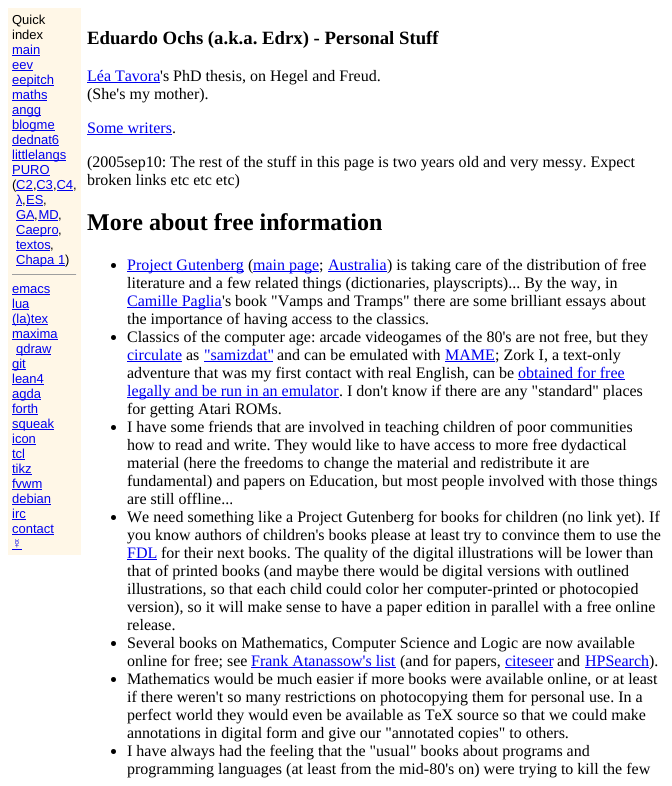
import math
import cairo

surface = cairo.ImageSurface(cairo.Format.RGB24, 672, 786)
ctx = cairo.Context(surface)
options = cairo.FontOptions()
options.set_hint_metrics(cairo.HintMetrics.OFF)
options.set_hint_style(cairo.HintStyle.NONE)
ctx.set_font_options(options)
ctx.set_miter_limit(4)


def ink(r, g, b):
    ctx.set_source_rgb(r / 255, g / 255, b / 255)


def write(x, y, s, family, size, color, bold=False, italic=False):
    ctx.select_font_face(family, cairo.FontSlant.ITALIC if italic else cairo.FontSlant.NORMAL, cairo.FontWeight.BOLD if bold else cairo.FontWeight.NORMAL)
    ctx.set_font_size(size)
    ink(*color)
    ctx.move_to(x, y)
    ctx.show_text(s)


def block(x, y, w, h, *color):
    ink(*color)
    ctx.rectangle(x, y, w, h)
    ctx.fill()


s1 = dict(family="Liberation Sans", size=13, color=(0, 0, 0))
s2 = dict(family="Liberation Sans", size=13, color=(0, 0, 238))
s3 = dict(family="Liberation Serif", size=18.75, color=(0, 0, 0), bold=True)
s4 = dict(family="Liberation Serif", size=16, color=(0, 0, 238))
s5 = dict(family="Liberation Serif", size=16, color=(0, 0, 0))
s6 = dict(family="Liberation Serif", size=24, color=(0, 0, 0), bold=True)

ink(255, 255, 255)
ctx.paint()
block(8, 8, 73, 547, 255, 247, 231)
write(12, 24, "Quick", **s1)
write(12, 39, "index", **s1)
write(12, 54, "main", **s2)
block(12, 55, 28, 1, 0, 0, 238)
write(12, 69, "eev", **s2)
block(12, 70, 21, 1, 0, 0, 238)
block(12, 85, 42, 1, 0, 0, 238)
write(12, 84, "eepitch", **s2)
write(12, 99, "maths", **s2)
block(12, 100, 35, 1, 0, 0, 238)
block(12, 115, 29, 1, 0, 0, 238)
write(12, 114, "angg", **s2)
block(12, 130, 43, 1, 0, 0, 238)
write(12, 129, "blogme", **s2)
write(12, 144, "dednat6", **s2)
block(12, 145, 47, 1, 0, 0, 238)
block(12, 160, 54, 1, 0, 0, 238)
write(12, 159, "littlelangs", **s2)
write(12, 174, "PURO", **s2)
block(12, 175, 38, 1, 0, 0, 238)
write(12, 189, "(", **s1)
write(16, 189, "C2 C3 C4", **s2)
block(16, 190, 17, 1, 0, 0, 238)
write(33, 189, ",", **s1)
block(37, 190, 16, 1, 0, 0, 238)
write(53, 189, ",", **s1)
block(57, 190, 16, 1, 0, 0, 238)
write(73, 189, ",", **s1)
write(16, 204, "λ ES", **s2)
block(16, 205, 6, 1, 0, 0, 238)
write(22, 204, ",", **s1)
block(26, 205, 17, 1, 0, 0, 238)
write(43, 204, ",", **s1)
write(16, 219, "GA MD", **s2)
block(16, 220, 18, 1, 0, 0, 238)
write(34, 219, ",", **s1)
block(38, 220, 20, 1, 0, 0, 238)
write(58, 219, ",", **s1)
block(16, 235, 42, 1, 0, 0, 238)
write(16, 234, "Caepro", **s2)
write(58, 234, ",", **s1)
write(16, 249, "textos", **s2)
block(16, 250, 34, 1, 0, 0, 238)
write(50, 249, ",", **s1)
block(16, 265, 49, 1, 0, 0, 238)
write(16, 264, "Chapa 1", **s2)
write(65, 264, ")", **s1)
block(12, 274, 65, 1, 159, 159, 159)
block(76, 274, 1, 1, 238, 238, 238)
write(12, 293, "emacs", **s2)
block(12, 294, 38, 1, 0, 0, 238)
write(12, 308, "lua", **s2)
block(12, 309, 17, 1, 0, 0, 238)
block(12, 324, 36, 1, 0, 0, 238)
write(12, 323, "(la)tex", **s2)
write(12, 338, "maxima", **s2)
block(12, 339, 46, 1, 0, 0, 238)
block(16, 354, 35, 1, 0, 0, 238)
write(16, 353, "qdraw", **s2)
block(12, 369, 14, 1, 0, 0, 238)
write(12, 368, "git", **s2)
write(12, 383, "lean4", **s2)
block(12, 384, 32, 1, 0, 0, 238)
block(12, 399, 29, 1, 0, 0, 238)
write(12, 398, "agda", **s2)
write(12, 413, "forth", **s2)
block(12, 414, 26, 1, 0, 0, 238)
block(12, 429, 42, 1, 0, 0, 238)
write(12, 428, "squeak", **s2)
write(12, 443, "icon", **s2)
block(12, 444, 24, 1, 0, 0, 238)
write(12, 458, "tcl", **s2)
block(12, 459, 13, 1, 0, 0, 238)
write(12, 473, "tikz", **s2)
block(12, 474, 20, 1, 0, 0, 238)
write(12, 488, "fvwm", **s2)
block(12, 489, 30, 1, 0, 0, 238)
write(12, 503, "debian", **s2)
block(12, 504, 39, 1, 0, 0, 238)
write(12, 518, "irc", **s2)
block(12, 519, 14, 1, 0, 0, 238)
write(12, 533, "contact", **s2)
block(12, 534, 42, 1, 0, 0, 238)
write(12, 548, "☿", **s2)
block(12, 549, 10, 1, 0, 0, 238)
write(87, 44, "Eduardo Ochs (a.k.a. Edrx) - Personal Stuff", **s3)
write(87, 81, "Léa Tavora", **s4)
block(87, 82, 73, 1, 0, 0, 238)
write(160, 81, "'s PhD thesis, on Hegel and Freud.", **s5)
write(87, 99, "(She's my mother).", **s5)
write(87, 133, "Some writers", **s4)
block(87, 134, 85, 1, 0, 0, 238)
write(172, 133, ".", **s5)
write(87, 167, "(2005sep10: The rest of the stuff in this page is two years old and very messy. Expect", **s5)
write(87, 185, "broken links etc etc etc)", **s5)
write(87, 230, "More about free information", **s6)
ctx.new_path()
ctx.arc(113.5, 265.5, 2.5, 0, 2 * math.pi)
ctx.fill()
block(127, 271, 117, 1, 0, 0, 238)
write(127, 270, "Project Gutenberg", **s4)
write(248, 270, "(", **s5)
block(253, 271, 66, 1, 0, 0, 238)
write(253, 270, "main page", **s4)
write(319, 270, ";", **s5)
write(328, 270, "Australia", **s4)
block(328, 271, 59, 1, 0, 0, 238)
write(387, 270, ") is taking care of the distribution of free", **s5)
write(127, 288, "literature and a few related things (dictionaries, playscripts)... By the way, in", **s5)
block(127, 307, 95, 1, 0, 0, 238)
write(127, 306, "Camille Paglia", **s4)
write(222, 306, "'s book \"Vamps and Tramps\" there are some brilliant essays about", **s5)
write(127, 324, "the importance of having access to the classics.", **s5)
ctx.new_path()
ctx.arc(113.5, 337.5, 2.5, 0, 2 * math.pi)
ctx.fill()
write(127, 342, "Classics of the computer age: arcade videogames of the 80's are not free, but they", **s5)
write(127, 360, "circulate", **s4)
block(127, 361, 55, 1, 0, 0, 238)
write(186, 360, "as", **s5)
write(204, 360, "\"samizdat\"", **s4)
block(204, 361, 69, 1, 0, 0, 238)
write(277, 360, "and can be emulated with", **s5)
write(445, 360, "MAME", **s4)
block(445, 361, 50, 1, 0, 0, 238)
write(495, 360, "; Zork I, a text-only", **s5)
write(127, 378, "adventure that was my first contact with real English, can be", **s5)
write(518, 378, "obtained for free", **s4)
block(518, 379, 107, 1, 0, 0, 238)
block(127, 397, 212, 1, 0, 0, 238)
write(127, 396, "legally and be run in an emulator", **s4)
write(339, 396, ". I don't know if there are any \"standard\" places", **s5)
write(127, 414, "for getting Atari ROMs.", **s5)
ctx.new_path()
ctx.arc(113.5, 427.5, 2.5, 0, 2 * math.pi)
ctx.fill()
write(127, 432, "I have some friends that are involved in teaching children of poor communities", **s5)
write(127, 450, "how to read and write. They would like to have access to more free dydactical", **s5)
write(127, 468, "material (here the freedoms to change the material and redistribute it are", **s5)
write(127, 486, "fundamental) and papers on Education, but most people involved with those things", **s5)
write(127, 504, "are still offline...", **s5)
ctx.new_path()
ctx.arc(113.5, 517.5, 2.5, 0, 2 * math.pi)
ctx.fill()
write(127, 522, "We need something like a Project Gutenberg for books for children (no link yet). If", **s5)
write(127, 540, "you know authors of children's books please at least try to convince them to use the", **s5)
write(127, 558, "FDL", **s4)
block(127, 559, 30, 1, 0, 0, 238)
write(161, 558, "for their next books. The quality of the digital illustrations will be lower than", **s5)
write(127, 576, "that of printed books (and maybe there would be digital versions with outlined", **s5)
write(127, 594, "illustrations, so that each child could color her computer-printed or photocopied", **s5)
write(127, 612, "version), so it will make sense to have a paper edition in parallel with a free online", **s5)
write(127, 630, "release.", **s5)
ctx.new_path()
ctx.arc(113.5, 643.5, 2.5, 0, 2 * math.pi)
ctx.fill()
write(127, 648, "Several books on Mathematics, Computer Science and Logic are now available", **s5)
write(127, 666, "online for free; see", **s5)
write(251, 666, "Frank Atanassow's list", **s4)
block(251, 667, 145, 1, 0, 0, 238)
write(400, 666, "(and for papers,", **s5)
write(505, 666, "citeseer", **s4)
block(505, 667, 48, 1, 0, 0, 238)
write(557, 666, "and", **s5)
write(585, 666, "HPSearch", **s4)
block(585, 667, 64, 1, 0, 0, 238)
write(649, 666, ").", **s5)
ctx.new_path()
ctx.arc(113.5, 679.5, 2.5, 0, 2 * math.pi)
ctx.fill()
write(127, 684, "Mathematics would be much easier if more books were available online, or at least", **s5)
write(127, 702, "if there weren't so many restrictions on photocopying them for personal use. In a", **s5)
write(127, 720, "perfect world they would even be available as TeX source so that we could make", **s5)
write(127, 738, "annotations in digital form and give our \"annotated copies\" to others.", **s5)
ctx.new_path()
ctx.arc(113.5, 751.5, 2.5, 0, 2 * math.pi)
ctx.fill()
write(127, 756, "I have always had the feeling that the \"usual\" books about programs and", **s5)
write(127, 774, "programming languages (at least from the mid-80's on) were trying to kill the few", **s5)
surface.write_to_png("screenshot.png")
